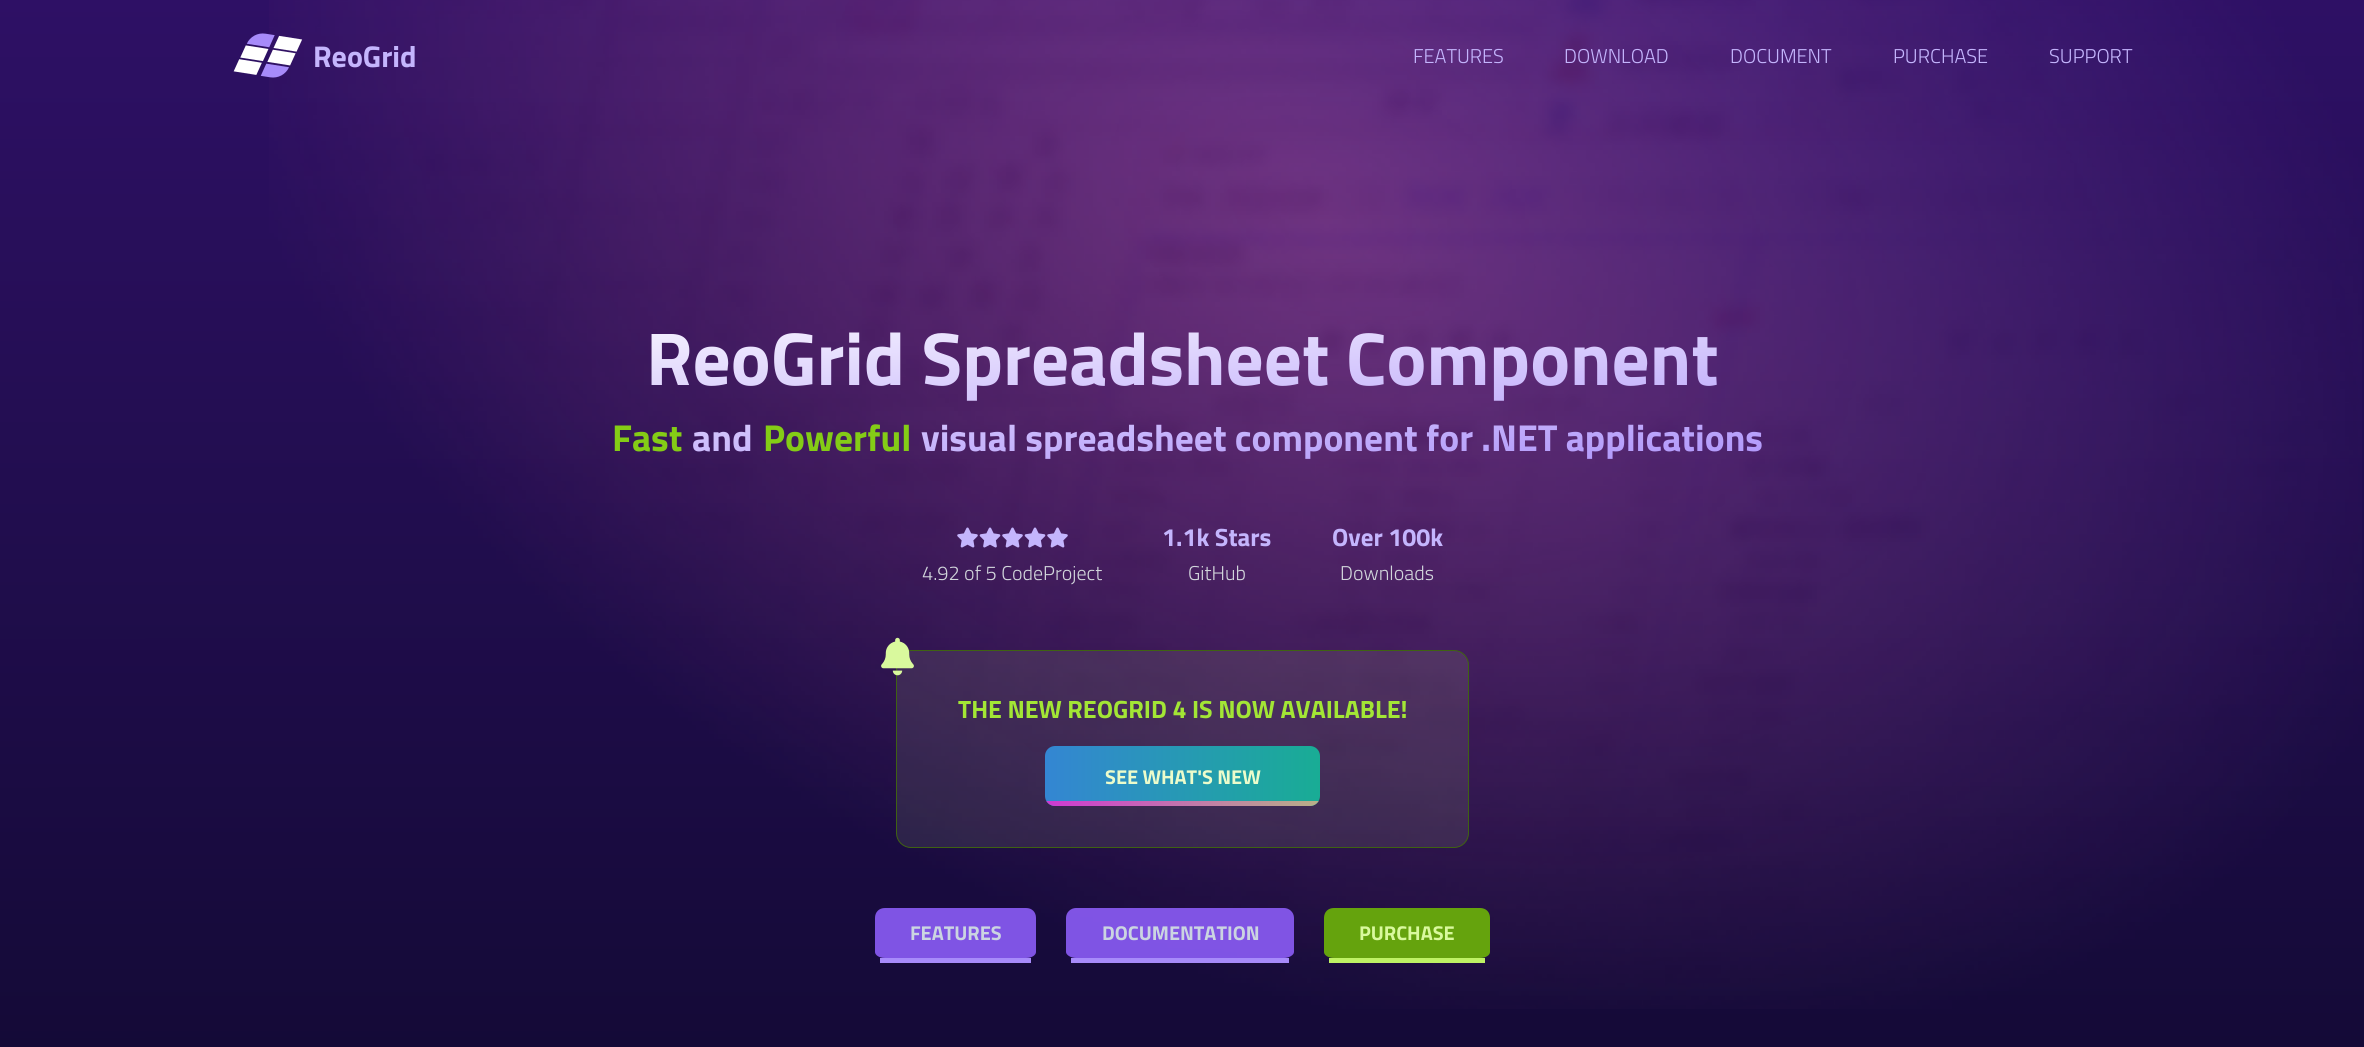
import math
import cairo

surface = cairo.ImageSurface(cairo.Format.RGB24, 2364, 1047)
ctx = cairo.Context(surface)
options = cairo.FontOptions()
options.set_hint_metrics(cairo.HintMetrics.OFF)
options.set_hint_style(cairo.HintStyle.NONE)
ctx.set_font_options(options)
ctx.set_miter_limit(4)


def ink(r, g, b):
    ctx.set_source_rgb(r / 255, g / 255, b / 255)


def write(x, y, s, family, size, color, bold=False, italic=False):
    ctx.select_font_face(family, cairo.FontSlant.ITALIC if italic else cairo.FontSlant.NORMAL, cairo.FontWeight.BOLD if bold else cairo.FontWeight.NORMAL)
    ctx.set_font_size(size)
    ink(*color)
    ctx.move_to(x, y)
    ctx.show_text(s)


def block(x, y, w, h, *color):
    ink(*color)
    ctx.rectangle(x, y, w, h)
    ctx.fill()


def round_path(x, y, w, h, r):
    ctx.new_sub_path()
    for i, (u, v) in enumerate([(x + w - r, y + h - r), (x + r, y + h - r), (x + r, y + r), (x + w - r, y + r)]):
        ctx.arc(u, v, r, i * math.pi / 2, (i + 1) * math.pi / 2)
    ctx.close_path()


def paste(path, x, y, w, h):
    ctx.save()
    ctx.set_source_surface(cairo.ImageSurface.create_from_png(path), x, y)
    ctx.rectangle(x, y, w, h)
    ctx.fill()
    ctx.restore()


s1 = dict(family="Titillium Web", size=30, color=(196, 181, 253), bold=True)
s2 = dict(family="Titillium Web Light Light", size=20, color=(196, 181, 253))
s3 = dict(family="Titillium Web", size=37.5, color=(132, 204, 22), bold=True)
s4 = dict(family="Titillium Web Light Light", size=20, color=(209, 213, 219))
s5 = dict(family="Titillium Web", size=25, color=(196, 181, 253), bold=True)
s6 = dict(family="Titillium Web", size=25, color=(163, 230, 53), bold=True)
s7 = dict(family="Titillium Web", size=20, color=(236, 252, 203), bold=True)
s8 = dict(family="Titillium Web", size=20, color=(203, 213, 225), bold=True)
s9 = dict(family="Titillium Web", size=20, color=(217, 249, 157), bold=True)

ink(255, 255, 255)
ctx.paint()
gradient = cairo.LinearGradient(1182, 0, 1183, 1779)
gradient.add_color_stop_rgba(0, 0.18, 0.063, 0.396, 1)
gradient.add_color_stop_rgba(1, 0.008, 0.024, 0.09, 1)
ctx.set_source(gradient)
ctx.rectangle(0, 0, 2364, 1047)
ctx.fill()
paste("pic2.png", 269, 0, 2093, 1009)
paste("pic1.png", 233, 33, 70, 45)
write(313, 67, "ReoGrid", **s1)
write(1413, 63, "FEATURES", **s2)
write(1564, 63, "DOWNLOAD", **s2)
write(1730, 63, "DOCUMENT", **s2)
write(1893, 63, "PURCHASE", **s2)
write(2049, 63, "SUPPORT", **s2)
ctx.select_font_face("Titillium Web", cairo.FontSlant.NORMAL, cairo.FontWeight.BOLD)
ctx.set_font_size(75)
gradient = cairo.LinearGradient(1172, 251, 1193, 529)
gradient.add_color_stop_rgba(0, 1, 1, 1, 1)
gradient.add_color_stop_rgba(1, 0.655, 0.545, 0.98, 1)
ctx.set_source(gradient)
ctx.move_to(646, 385)
ctx.show_text("ReoGrid Spreadsheet Component")
write(612, 451, "Fast", **s3)
gradient = cairo.LinearGradient(1172, 251, 1193, 529)
gradient.add_color_stop_rgba(0, 1, 1, 1, 1)
gradient.add_color_stop_rgba(1, 0.655, 0.545, 0.98, 1)
ctx.set_source(gradient)
ctx.move_to(692, 451)
ctx.show_text("and")
write(763, 451, "Powerful", **s3)
gradient = cairo.LinearGradient(1172, 251, 1193, 529)
gradient.add_color_stop_rgba(0, 1, 1, 1, 1)
gradient.add_color_stop_rgba(1, 0.655, 0.545, 0.98, 1)
ctx.set_source(gradient)
ctx.move_to(921, 451)
ctx.show_text("visual spreadsheet component for .NET applications")
paste("pic3.png", 957, 527, 21, 21)
paste("pic4.png", 979, 527, 22, 21)
paste("pic5.png", 1002, 527, 21, 21)
paste("pic6.png", 1024, 527, 22, 21)
paste("pic7.png", 1047, 527, 21, 21)
write(922, 580, "4.92 of 5 CodeProject", **s4)
write(1162, 546, "1.1k Stars", **s5)
write(1188, 580, "GitHub", **s4)
write(1332, 546, "Over 100k", **s5)
write(1340, 580, "Downloads", **s4)
ctx.set_source_rgba(0.851, 0.976, 0.616, 0.1)
round_path(896.5, 650.5, 572, 197, 14.5)
ctx.fill_preserve()
ink(63, 98, 18)
ctx.set_line_width(1)
ctx.stroke()
paste("pic8.png", 881, 637, 33, 39)
write(958, 718, "THE NEW REOGRID 4 IS NOW AVAILABLE!", **s6)
gradient = cairo.LinearGradient(2145, 866, 1045, 866)
gradient.add_color_stop_rgba(0, 0.204, 0.827, 0.6, 1)
gradient.add_color_stop_rgba(0.33, 0.02, 0.58, 0.067, 1)
gradient.add_color_stop_rgba(0.67, 0.063, 0.725, 0.506, 1)
gradient.add_color_stop_rgba(1, 0.204, 0.525, 0.827, 1)
ctx.set_source(gradient)
round_path(1045, 746, 275, 60, 10)
ctx.fill()
write(1105, 784, "SEE WHAT'S NEW", **s7)
ctx.save()
round_path(1045, 746, 275, 60, 10)
ctx.clip()
gradient = cairo.LinearGradient(2145, 811, 1045, 811)
gradient.add_color_stop_rgba(0, 0.196, 0.322, 0.788, 1)
gradient.add_color_stop_rgba(0.33, 0.02, 0.58, 0.067, 1)
gradient.add_color_stop_rgba(0.67, 0.694, 0.839, 0.439, 1)
gradient.add_color_stop_rgba(1, 0.812, 0.224, 0.824, 1)
ctx.set_source(gradient)
ctx.rectangle(1045, 801, 275, 5)
ctx.fill()
ctx.restore()
ctx.set_source_rgba(0.545, 0.361, 0.965, 0.9)
ctx.new_path()
ctx.move_to(885, 908)
ctx.line_to(1026, 908)
ctx.curve_to(1032, 908, 1036, 912, 1036, 918)
ctx.line_to(1036, 952)
ctx.curve_to(1036, 955, 1032, 958, 1026, 958)
ctx.line_to(885, 958)
ctx.curve_to(879, 958, 875, 955, 875, 952)
ctx.line_to(875, 918)
ctx.curve_to(875, 912, 879, 908, 885, 908)
ctx.close_path()
ctx.fill()
block(880, 958, 151, 5, 167, 139, 250)
write(910, 940, "FEATURES", **s8)
ctx.set_source_rgba(0.545, 0.361, 0.965, 0.9)
ctx.new_path()
ctx.move_to(1076, 908)
ctx.line_to(1284, 908)
ctx.curve_to(1289, 908, 1294, 912, 1294, 918)
ctx.line_to(1294, 952)
ctx.curve_to(1294, 955, 1289, 958, 1284, 958)
ctx.line_to(1076, 958)
ctx.curve_to(1071, 958, 1066, 955, 1066, 952)
ctx.line_to(1066, 918)
ctx.curve_to(1066, 912, 1071, 908, 1076, 908)
ctx.close_path()
ctx.fill()
block(1071, 958, 218, 5, 167, 139, 250)
write(1102, 940, "DOCUMENTATION", **s8)
ink(101, 163, 13)
ctx.new_path()
ctx.move_to(1334, 908)
ctx.line_to(1480, 908)
ctx.curve_to(1486, 908, 1490, 912, 1490, 918)
ctx.line_to(1490, 952)
ctx.curve_to(1490, 955, 1486, 958, 1480, 958)
ctx.line_to(1334, 958)
ctx.curve_to(1328, 958, 1324, 955, 1324, 952)
ctx.line_to(1324, 918)
ctx.curve_to(1324, 912, 1328, 908, 1334, 908)
ctx.close_path()
ctx.fill()
block(1329, 958, 156, 5, 190, 242, 100)
write(1359, 940, "PURCHASE", **s9)
surface.write_to_png("screenshot.png")
